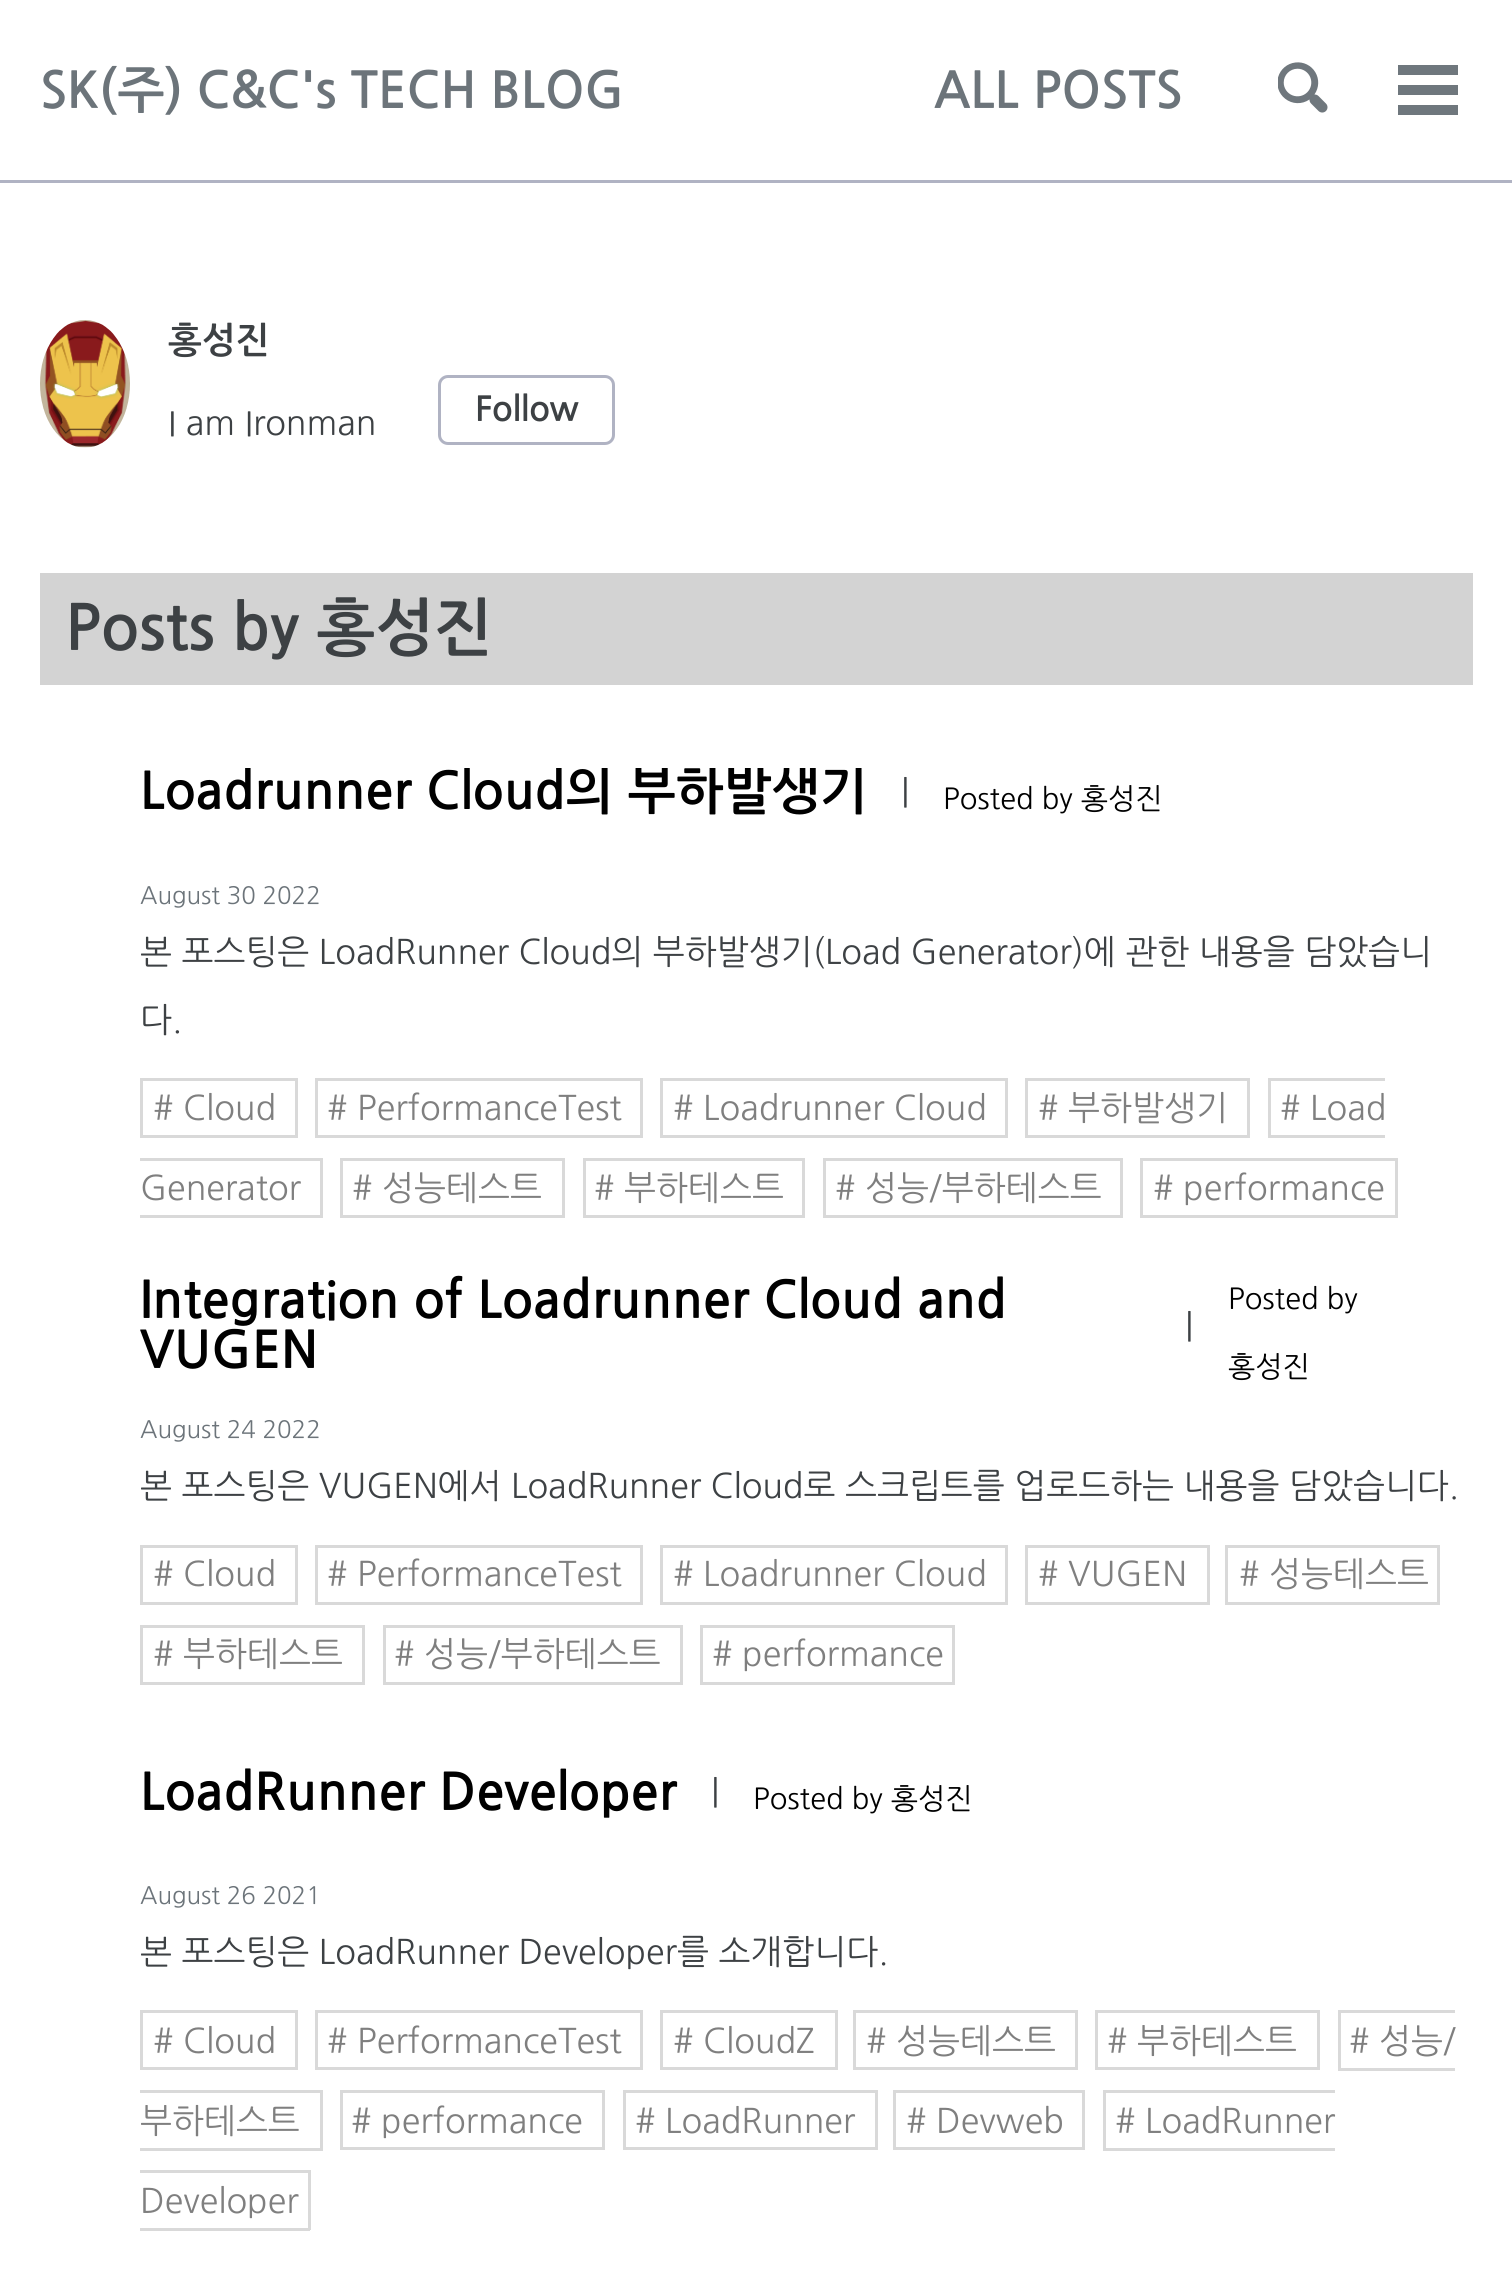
import math
import cairo

surface = cairo.ImageSurface(cairo.Format.RGB24, 1512, 2291)
ctx = cairo.Context(surface)
options = cairo.FontOptions()
options.set_hint_metrics(cairo.HintMetrics.OFF)
options.set_hint_style(cairo.HintStyle.NONE)
ctx.set_font_options(options)
ctx.set_miter_limit(4)


def ink(r, g, b):
    ctx.set_source_rgb(r / 255, g / 255, b / 255)


def write(x, y, s, family, size, color, bold=False, italic=False):
    ctx.select_font_face(family, cairo.FontSlant.ITALIC if italic else cairo.FontSlant.NORMAL, cairo.FontWeight.BOLD if bold else cairo.FontWeight.NORMAL)
    ctx.set_font_size(size)
    ink(*color)
    ctx.move_to(x, y)
    ctx.show_text(s)


def block(x, y, w, h, *color):
    ink(*color)
    ctx.rectangle(x, y, w, h)
    ctx.fill()


def round_path(x, y, w, h, r):
    ctx.new_sub_path()
    for i, (u, v) in enumerate([(x + w - r, y + h - r), (x + r, y + h - r), (x + r, y + r), (x + w - r, y + r)]):
        ctx.arc(u, v, r, i * math.pi / 2, (i + 1) * math.pi / 2)
    ctx.close_path()


def paste(path, x, y, w, h):
    ctx.save()
    ctx.set_source_surface(cairo.ImageSurface.create_from_png(path), x, y)
    ctx.rectangle(x, y, w, h)
    ctx.fill()
    ctx.restore()


s1 = dict(family="NanumGothic", size=50, color=(108, 116, 122), bold=True)
s2 = dict(family="NanumGothic", size=36, color=(61, 65, 68), bold=True)
s3 = dict(family="NanumGothic", size=34, color=(61, 65, 68))
s4 = dict(family="NanumGothic", size=34, color=(61, 65, 68), bold=True)
s5 = dict(family="NanumGothic", size=62.5, color=(61, 65, 68), bold=True)
s6 = dict(family="NanumGothic", size=51, color=(0, 0, 0), bold=True)
s7 = dict(family="NanumGothic", size=29, color=(0, 0, 0))
s8 = dict(family="NanumGothic", size=24, color=(108, 116, 122))
s9 = dict(family="NanumGothic", size=34, color=(127, 127, 127))

ink(255, 255, 255)
ctx.paint()
block(0, 180, 1512, 3, 176, 179, 195)
write(40, 108, "SK(주) C&C's TECH BLOG", **s1)
write(934, 108, "ALL POSTS", **s1)
paste("pic1.png", 1278, 62, 50, 51)
block(1398, 85, 60, 10, 111, 119, 125)
block(1398, 65, 60, 10, 111, 119, 125)
block(1398, 105, 60, 10, 111, 119, 125)
paste("pic2.png", 40, 320, 90, 128)
write(168, 353, "홍성진", **s2)
write(168, 435, "I am Ironman", **s3)
round_path(439.5, 376.5, 174, 67, 8.5)
ink(176, 179, 195)
ctx.set_line_width(3)
ctx.stroke()
write(475, 421, "Follow", **s4)
block(40, 573, 1433, 112, 211, 211, 211)
write(65, 650, "Posts by 홍성진", **s5)
ctx.save()
ctx.rectangle(140, 768, 728, 50)
ctx.clip()
write(140, 809, "Loadrunner Cloud의 부하발생기", **s6)
ctx.restore()
write(901, 804, "|", **s3)
write(943, 809, "Posted by 홍성진", **s7)
write(140, 904, "August 30 2022", **s8)
write(140, 964, "본 포스팅은 LoadRunner Cloud의 부하발생기(Load Generator)에 관한 내용을 담았습니", **s3)
write(140, 1032, "다.", **s3)
ctx.rectangle(141.5, 1079.5, 155, 57)
ink(217, 217, 217)
ctx.stroke()
write(153, 1120, "# Cloud", **s9)
ctx.rectangle(316.5, 1079.5, 325, 57)
ink(217, 217, 217)
ctx.stroke()
write(327, 1120, "# PerformanceTest", **s9)
ctx.rectangle(661.5, 1079.5, 345, 57)
ink(217, 217, 217)
ctx.stroke()
write(673, 1120, "# Loadrunner Cloud", **s9)
ctx.rectangle(1026.5, 1079.5, 222, 57)
ink(217, 217, 217)
ctx.stroke()
write(1038, 1120, "# 부하발생기", **s9)
write(1280, 1120, "# Load", **s9)
block(1268, 1078, 117, 3, 217, 217, 217)
block(1268, 1135, 117, 3, 217, 217, 217)
block(1268, 1078, 3, 60, 217, 217, 217)
write(140, 1200, "Generator", **s9)
block(140, 1158, 183, 3, 217, 217, 217)
block(320, 1158, 3, 60, 217, 217, 217)
block(140, 1215, 183, 3, 217, 217, 217)
ctx.rectangle(341.5, 1159.5, 222, 57)
ctx.stroke()
write(352, 1200, "# 성능테스트", **s9)
ctx.rectangle(584.5, 1159.5, 219, 57)
ink(217, 217, 217)
ctx.stroke()
write(594, 1200, "# 부하테스트", **s9)
ctx.rectangle(824.5, 1159.5, 297, 57)
ink(217, 217, 217)
ctx.stroke()
write(835, 1200, "# 성능/부하테스트", **s9)
ctx.rectangle(1141.5, 1159.5, 255, 57)
ink(217, 217, 217)
ctx.stroke()
write(1153, 1200, "# performance", **s9)
write(140, 1318, "Integration of Loadrunner Cloud and", **s6)
write(140, 1368, "VUGEN", **s6)
write(1185, 1338, "|", **s3)
write(1228, 1309, "Posted by", **s7)
write(1228, 1377, "홍성진", **s7)
write(140, 1438, "August 24 2022", **s8)
write(140, 1498, "본 포스팅은 VUGEN에서 LoadRunner Cloud로 스크립트를 업로드하는 내용을 담았습니다.", **s3)
ctx.rectangle(141.5, 1546.5, 155, 57)
ink(217, 217, 217)
ctx.stroke()
write(153, 1586, "# Cloud", **s9)
ctx.rectangle(316.5, 1546.5, 325, 57)
ink(217, 217, 217)
ctx.stroke()
write(327, 1586, "# PerformanceTest", **s9)
ctx.rectangle(661.5, 1546.5, 345, 57)
ink(217, 217, 217)
ctx.stroke()
write(673, 1586, "# Loadrunner Cloud", **s9)
ctx.rectangle(1026.5, 1546.5, 182, 57)
ink(217, 217, 217)
ctx.stroke()
write(1038, 1586, "# VUGEN", **s9)
ctx.rectangle(1226.5, 1546.5, 212, 57)
ink(217, 217, 217)
ctx.stroke()
write(1239, 1586, "# 성능테스트", **s9)
ctx.rectangle(141.5, 1626.5, 222, 57)
ink(217, 217, 217)
ctx.stroke()
write(153, 1666, "# 부하테스트", **s9)
ctx.rectangle(384.5, 1626.5, 297, 57)
ink(217, 217, 217)
ctx.stroke()
write(394, 1666, "# 성능/부하테스트", **s9)
ctx.rectangle(701.5, 1626.5, 252, 57)
ink(217, 217, 217)
ctx.stroke()
write(712, 1666, "# performance", **s9)
write(140, 1810, "LoadRunner Developer", **s6)
write(711, 1804, "|", **s3)
write(753, 1809, "Posted by 홍성진", **s7)
write(140, 1904, "August 26 2021", **s8)
write(140, 1964, "본 포스팅은 LoadRunner Developer를 소개합니다.", **s3)
ctx.rectangle(141.5, 2011.5, 155, 57)
ink(217, 217, 217)
ctx.stroke()
write(153, 2053, "# Cloud", **s9)
ctx.rectangle(316.5, 2011.5, 325, 57)
ink(217, 217, 217)
ctx.stroke()
write(327, 2053, "# PerformanceTest", **s9)
ctx.rectangle(661.5, 2011.5, 175, 57)
ink(217, 217, 217)
ctx.stroke()
write(673, 2053, "# CloudZ", **s9)
ctx.rectangle(854.5, 2011.5, 222, 57)
ink(217, 217, 217)
ctx.stroke()
write(866, 2053, "# 성능테스트", **s9)
ctx.rectangle(1096.5, 2011.5, 222, 57)
ink(217, 217, 217)
ctx.stroke()
write(1107, 2053, "# 부하테스트", **s9)
write(1349, 2053, "# 성능/", **s9)
block(1338, 2010, 117, 3, 217, 217, 217)
block(1338, 2068, 117, 3, 217, 217, 217)
block(1338, 2010, 3, 60, 217, 217, 217)
write(140, 2133, "부하테스트", **s9)
block(140, 2090, 183, 3, 217, 217, 217)
block(320, 2090, 3, 60, 217, 217, 217)
block(140, 2148, 183, 3, 217, 217, 217)
ctx.rectangle(341.5, 2091.5, 262, 57)
ctx.stroke()
write(351, 2133, "# performance", **s9)
ctx.rectangle(624.5, 2091.5, 252, 57)
ink(217, 217, 217)
ctx.stroke()
write(635, 2133, "# LoadRunner", **s9)
ctx.rectangle(894.5, 2091.5, 189, 57)
ink(217, 217, 217)
ctx.stroke()
write(906, 2133, "# Devweb", **s9)
write(1115, 2133, "# LoadRunner", **s9)
block(1103, 2090, 232, 3, 217, 217, 217)
block(1103, 2148, 232, 3, 217, 217, 217)
block(1103, 2090, 3, 60, 217, 217, 217)
write(140, 2213, "Developer", **s9)
block(140, 2170, 170, 3, 217, 217, 217)
block(308, 2170, 3, 60, 217, 217, 217)
block(140, 2228, 170, 3, 217, 217, 217)
surface.write_to_png("screenshot.png")
